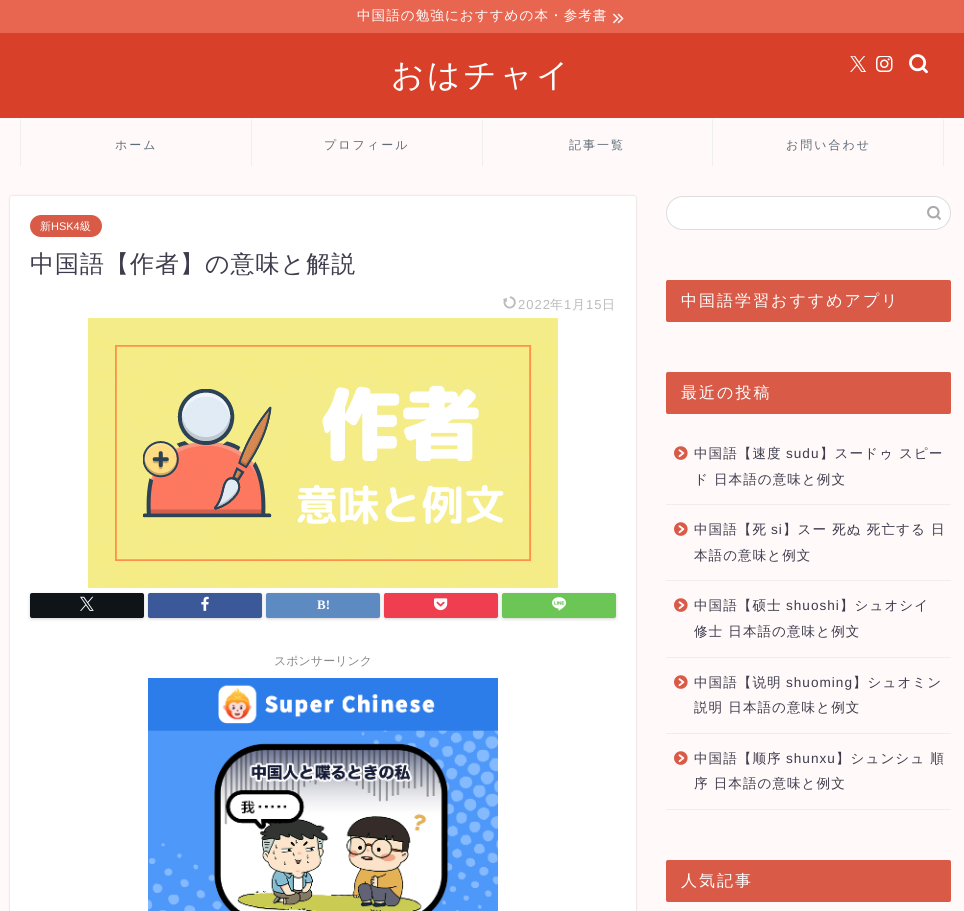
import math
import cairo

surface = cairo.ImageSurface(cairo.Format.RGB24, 964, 911)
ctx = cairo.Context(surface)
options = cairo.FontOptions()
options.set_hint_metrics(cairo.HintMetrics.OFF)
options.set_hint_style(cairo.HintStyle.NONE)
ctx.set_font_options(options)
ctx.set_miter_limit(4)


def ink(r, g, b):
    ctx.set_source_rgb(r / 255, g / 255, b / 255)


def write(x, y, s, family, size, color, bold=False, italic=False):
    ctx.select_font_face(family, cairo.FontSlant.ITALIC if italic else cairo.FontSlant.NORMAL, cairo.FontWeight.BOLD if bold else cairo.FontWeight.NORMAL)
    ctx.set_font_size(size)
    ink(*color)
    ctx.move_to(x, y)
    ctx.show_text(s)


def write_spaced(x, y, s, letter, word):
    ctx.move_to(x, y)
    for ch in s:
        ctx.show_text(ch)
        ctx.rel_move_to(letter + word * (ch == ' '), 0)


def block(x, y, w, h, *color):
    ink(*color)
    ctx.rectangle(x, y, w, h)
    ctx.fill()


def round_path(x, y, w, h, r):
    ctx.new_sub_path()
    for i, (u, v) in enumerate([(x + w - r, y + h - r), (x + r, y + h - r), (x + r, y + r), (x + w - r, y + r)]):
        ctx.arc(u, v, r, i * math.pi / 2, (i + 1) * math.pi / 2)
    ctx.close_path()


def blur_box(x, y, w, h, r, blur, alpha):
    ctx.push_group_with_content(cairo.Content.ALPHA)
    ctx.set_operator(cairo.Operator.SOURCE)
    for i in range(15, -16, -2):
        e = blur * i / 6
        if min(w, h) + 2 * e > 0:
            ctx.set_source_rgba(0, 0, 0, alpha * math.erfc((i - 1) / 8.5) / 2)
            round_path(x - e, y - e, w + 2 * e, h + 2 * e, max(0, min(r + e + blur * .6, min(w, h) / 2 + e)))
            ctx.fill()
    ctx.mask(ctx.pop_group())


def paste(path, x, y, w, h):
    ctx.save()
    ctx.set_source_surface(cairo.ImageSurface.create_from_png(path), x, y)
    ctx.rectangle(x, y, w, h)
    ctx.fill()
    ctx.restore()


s1 = dict(family="WenQuanYi Zen Hei Medium", size=11, color=(255, 255, 255))
s2 = dict(family="Liberation Sans", size=11, color=(255, 255, 255))
s3 = dict(family="Liberation Serif", size=13, color=(255, 255, 255), bold=True)
s4 = dict(family="WenQuanYi Zen Hei Medium", size=12, color=(136, 136, 136))

ink(255, 249, 249)
ctx.paint()
block(0, 0, 964, 33, 232, 101, 80)
ctx.select_font_face("WenQuanYi Zen Hei Medium")
ctx.set_font_size(13.6)
ink(255, 255, 255)
write_spaced(357, 20, "中国語の勉強におすすめの本・参考書", 1, 0)
paste("pic1.png", 613, 13, 11, 11)
block(0, 33, 964, 85, 216, 64, 41)
ctx.set_font_size(32.5)
ink(255, 255, 255)
write_spaced(391, 86, "おはチャイ", 3, 0)
paste("pic2.png", 850, 56, 16, 16)
paste("pic3.png", 876, 56, 17, 16)
paste("pic4.png", 909, 54, 19, 20)
ink(239, 239, 239)
ctx.new_path()
ctx.move_to(20, 166)
ctx.line_to(20, 118)
ctx.line_to(21, 120)
ctx.line_to(21, 166)
ctx.close_path()
ctx.fill()
ctx.set_font_size(12)
ink(94, 108, 119)
write_spaced(115, 149, "ホーム", 2, 0)
ink(239, 239, 239)
ctx.new_path()
ctx.move_to(251, 166)
ctx.line_to(251, 118)
ctx.line_to(252, 120)
ctx.line_to(252, 166)
ctx.close_path()
ctx.fill()
ink(94, 108, 119)
write_spaced(324, 149, "プロフィール", 2, 0)
ink(239, 239, 239)
ctx.new_path()
ctx.move_to(482, 166)
ctx.line_to(482, 118)
ctx.line_to(483, 120)
ctx.line_to(483, 166)
ctx.close_path()
ctx.fill()
ink(94, 108, 119)
write_spaced(569, 149, "記事一覧", 2, 0)
ink(239, 239, 239)
ctx.new_path()
ctx.move_to(944, 118)
ctx.line_to(944, 166)
ctx.line_to(943, 166)
ctx.line_to(943, 120)
ctx.close_path()
ctx.fill()
ctx.new_path()
ctx.move_to(712, 166)
ctx.line_to(712, 118)
ctx.line_to(713, 120)
ctx.line_to(713, 166)
ctx.close_path()
ctx.fill()
ink(94, 108, 119)
write_spaced(786, 149, "お問い合わせ", 2, 0)
ink(0, 0, 0)
blur_box(10, 196, 626, 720, 2, 1, 0.18)
ink(255, 255, 255)
round_path(10, 196, 626, 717, 2)
ctx.fill()
ink(216, 90, 71)
round_path(30, 215, 72, 22, 11)
ctx.fill()
write(40, 230, "新", **s1)
write(51, 230, "HSK4", **s2)
write(80, 230, "級", **s1)
ctx.set_font_size(24)
ink(62, 60, 76)
write_spaced(30, 272, "中国語【作者】の意味と解説", 1, 0)
paste("pic5.png", 503, 296, 13, 13)
ctx.select_font_face("Liberation Sans")
ctx.set_font_size(13)
ink(187, 187, 187)
write_spaced(518, 309, "2022", 1, 0)
ctx.select_font_face("WenQuanYi Zen Hei Medium")
write_spaced(550, 309, "年", 1, 0)
ctx.select_font_face("Liberation Sans")
write_spaced(564, 309, "1", 1, 0)
ctx.select_font_face("WenQuanYi Zen Hei Medium")
write_spaced(572, 309, "月", 1, 0)
ctx.select_font_face("Liberation Sans")
write_spaced(586, 309, "15", 1, 0)
ctx.select_font_face("WenQuanYi Zen Hei Medium")
write_spaced(602, 309, "日", 1, 0)
paste("pic6.png", 88, 318, 470, 270)
ink(0, 0, 0)
blur_box(30, 594, 114, 25, 2, 1.5, 0.18)
ink(15, 20, 25)
round_path(31, 594, 112, 23, 1)
ctx.fill_preserve()
ctx.stroke()
paste("pic7.png", 80, 596, 14, 15)
ink(0, 0, 0)
blur_box(148, 594, 114, 25, 2, 1.5, 0.18)
ink(59, 89, 152)
round_path(149, 594, 112, 23, 1)
ctx.fill_preserve()
ctx.stroke()
paste("pic8.png", 201, 596, 8, 15)
ink(0, 0, 0)
blur_box(266, 594, 114, 25, 2, 1.5, 0.18)
ink(93, 138, 193)
round_path(267, 594, 112, 23, 1)
ctx.fill_preserve()
ctx.stroke()
write(317, 609, "B!", **s3)
ink(0, 0, 0)
blur_box(384, 594, 114, 25, 2, 1.5, 0.18)
ink(240, 62, 81)
round_path(385, 594, 112, 23, 1)
ctx.fill_preserve()
ctx.stroke()
paste("pic9.png", 434, 598, 14, 13)
ink(0, 0, 0)
blur_box(502, 594, 114, 25, 2, 1.5, 0.18)
ink(108, 198, 85)
round_path(503, 594, 112, 23, 1)
ctx.fill_preserve()
ctx.stroke()
paste("pic10.png", 552, 597, 15, 14)
write(274, 665, "スポンサーリンク", **s4)
paste("pic11.png", 148, 678, 350, 233)
ink(255, 255, 255)
round_path(666.5, 196.5, 284, 33, 16.5)
ctx.fill_preserve()
ink(221, 221, 221)
ctx.set_line_width(1)
ctx.stroke()
paste("pic12.png", 927, 205, 14, 15)
ink(216, 90, 71)
round_path(666, 280, 285, 42, 2)
ctx.fill()
ctx.set_font_size(16)
ink(255, 255, 255)
write_spaced(681, 306, "中国語学習おすすめアプリ", 2, 0)
ink(216, 90, 71)
round_path(666, 372, 285, 42, 2)
ctx.fill()
ink(255, 255, 255)
write_spaced(681, 398, "最近の投稿", 2, 0)
block(666, 504, 285, 1, 242, 237, 237)
paste("pic13.png", 674, 446, 14, 14)
ctx.set_font_size(13.6)
ink(62, 60, 76)
write_spaced(694, 458, "中国語【速度", 1, 0)
ctx.select_font_face("Liberation Sans")
write_spaced(786, 458, "sudu", 1, 0)
ctx.select_font_face("WenQuanYi Zen Hei Medium")
write_spaced(820, 458, "】スードゥ スピー", 1, 0)
write_spaced(694, 484, "ド 日本語の意味と例文", 1, 0)
block(666, 580, 285, 1, 242, 237, 237)
paste("pic13.png", 674, 522, 14, 14)
ink(62, 60, 76)
write_spaced(694, 534, "中国語【死", 1, 0)
ctx.select_font_face("Liberation Sans")
write_spaced(771, 534, "si", 1, 0)
ctx.select_font_face("WenQuanYi Zen Hei Medium")
write_spaced(783, 534, "】スー 死ぬ 死亡する 日", 1, 0)
write_spaced(694, 560, "本語の意味と例文", 1, 0)
block(666, 657, 285, 1, 242, 237, 237)
paste("pic13.png", 674, 598, 14, 14)
ink(62, 60, 76)
write_spaced(694, 610, "中国語【硕士", 1, 0)
ctx.select_font_face("Liberation Sans")
write_spaced(786, 610, "shuoshi", 1, 0)
ctx.select_font_face("WenQuanYi Zen Hei Medium")
write_spaced(840, 610, "】シュオシイ", 1, 0)
write_spaced(694, 636, "修士 日本語の意味と例文", 1, 0)
block(666, 733, 285, 1, 242, 237, 237)
paste("pic13.png", 674, 675, 14, 14)
ink(62, 60, 76)
write_spaced(694, 687, "中国語【说明", 1, 0)
ctx.select_font_face("Liberation Sans")
write_spaced(786, 687, "shuoming", 1, 0)
ctx.select_font_face("WenQuanYi Zen Hei Medium")
write_spaced(853, 687, "】シュオミン", 1, 0)
write_spaced(694, 712, "説明 日本語の意味と例文", 1, 0)
block(666, 809, 285, 1, 242, 237, 237)
paste("pic13.png", 674, 751, 14, 14)
ink(62, 60, 76)
write_spaced(694, 763, "中国語【顺序", 1, 0)
ctx.select_font_face("Liberation Sans")
write_spaced(786, 763, "shunxu", 1, 0)
ctx.select_font_face("WenQuanYi Zen Hei Medium")
write_spaced(836, 763, "】シュンシュ 順", 1, 0)
write_spaced(694, 788, "序 日本語の意味と例文", 1, 0)
ink(216, 90, 71)
round_path(666, 860, 285, 42, 2)
ctx.fill()
ctx.set_font_size(16)
ink(255, 255, 255)
write_spaced(681, 886, "人気記事", 2, 0)
surface.write_to_png("screenshot.png")
